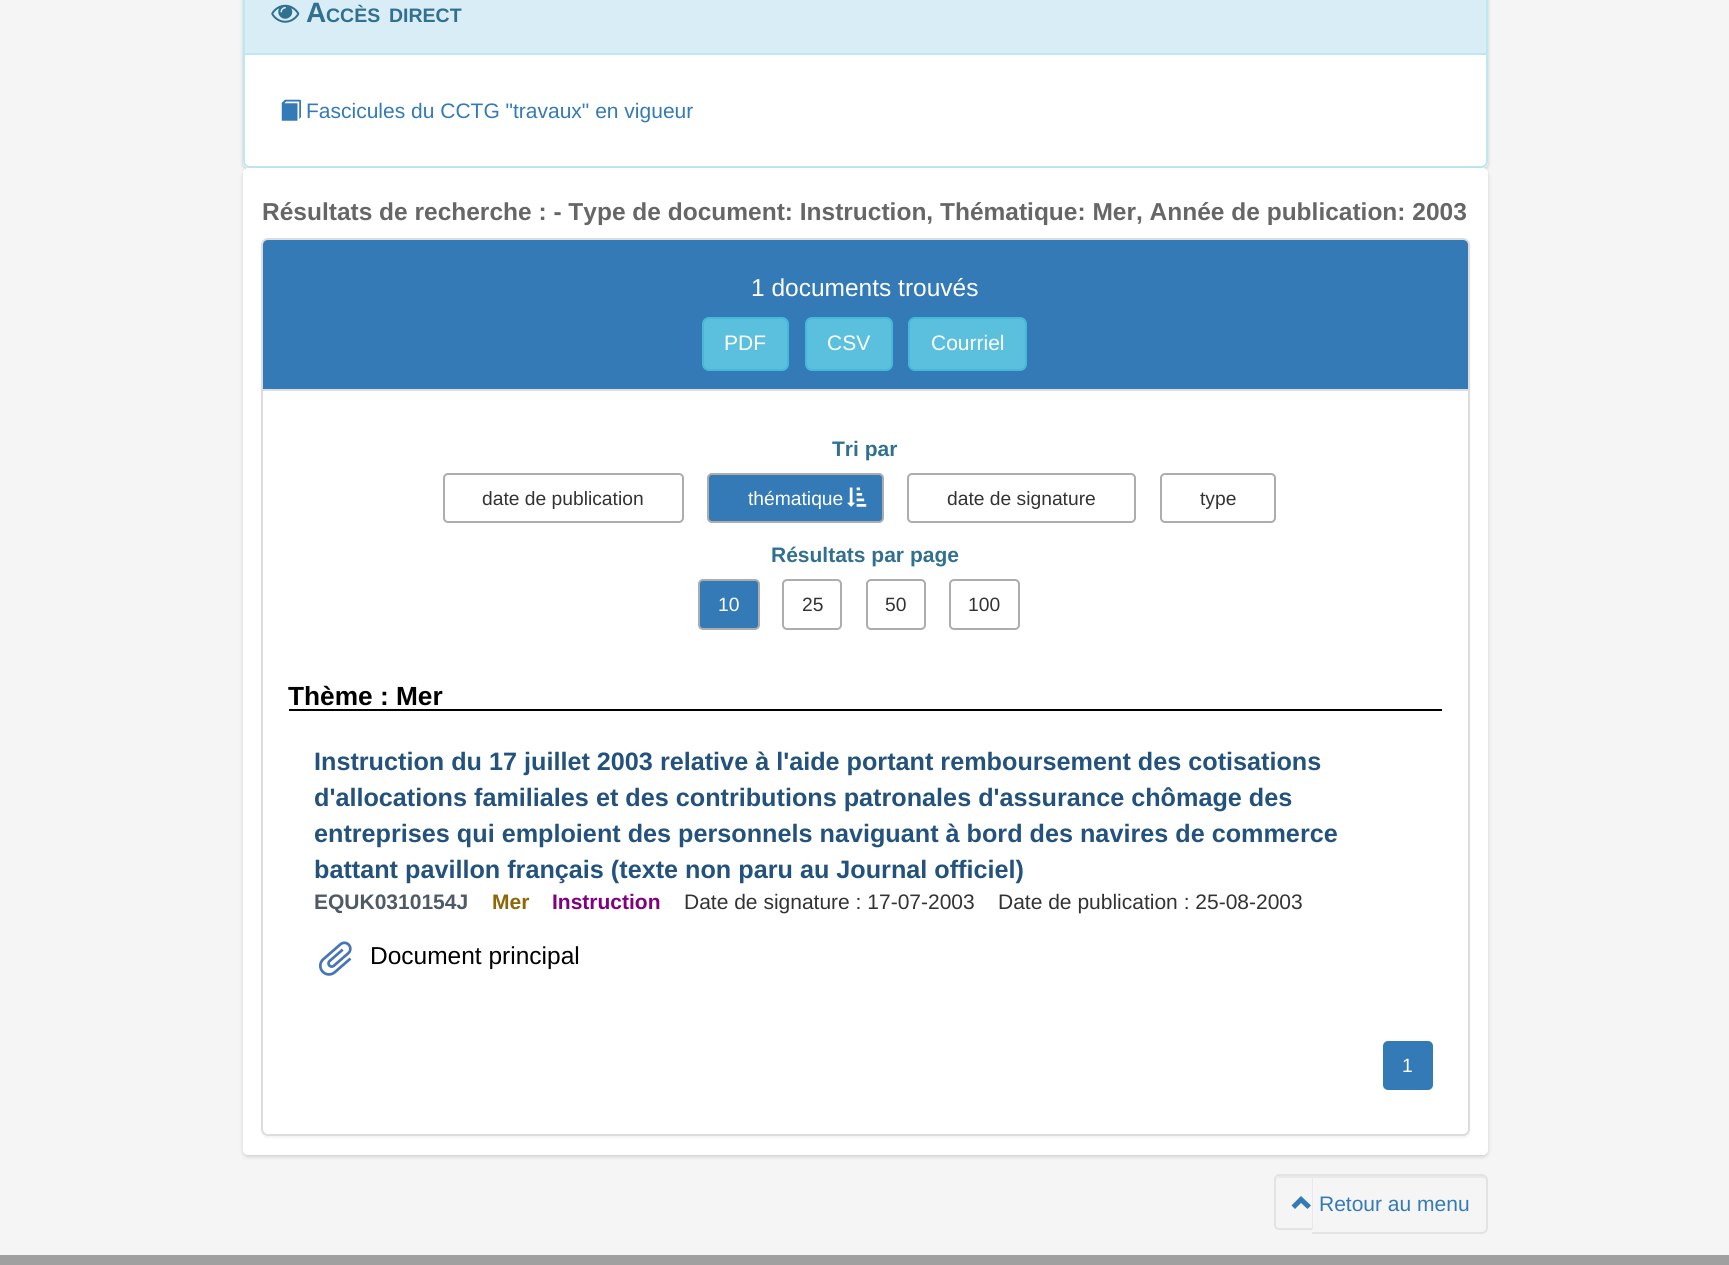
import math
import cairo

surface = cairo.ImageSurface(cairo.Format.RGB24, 1729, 1265)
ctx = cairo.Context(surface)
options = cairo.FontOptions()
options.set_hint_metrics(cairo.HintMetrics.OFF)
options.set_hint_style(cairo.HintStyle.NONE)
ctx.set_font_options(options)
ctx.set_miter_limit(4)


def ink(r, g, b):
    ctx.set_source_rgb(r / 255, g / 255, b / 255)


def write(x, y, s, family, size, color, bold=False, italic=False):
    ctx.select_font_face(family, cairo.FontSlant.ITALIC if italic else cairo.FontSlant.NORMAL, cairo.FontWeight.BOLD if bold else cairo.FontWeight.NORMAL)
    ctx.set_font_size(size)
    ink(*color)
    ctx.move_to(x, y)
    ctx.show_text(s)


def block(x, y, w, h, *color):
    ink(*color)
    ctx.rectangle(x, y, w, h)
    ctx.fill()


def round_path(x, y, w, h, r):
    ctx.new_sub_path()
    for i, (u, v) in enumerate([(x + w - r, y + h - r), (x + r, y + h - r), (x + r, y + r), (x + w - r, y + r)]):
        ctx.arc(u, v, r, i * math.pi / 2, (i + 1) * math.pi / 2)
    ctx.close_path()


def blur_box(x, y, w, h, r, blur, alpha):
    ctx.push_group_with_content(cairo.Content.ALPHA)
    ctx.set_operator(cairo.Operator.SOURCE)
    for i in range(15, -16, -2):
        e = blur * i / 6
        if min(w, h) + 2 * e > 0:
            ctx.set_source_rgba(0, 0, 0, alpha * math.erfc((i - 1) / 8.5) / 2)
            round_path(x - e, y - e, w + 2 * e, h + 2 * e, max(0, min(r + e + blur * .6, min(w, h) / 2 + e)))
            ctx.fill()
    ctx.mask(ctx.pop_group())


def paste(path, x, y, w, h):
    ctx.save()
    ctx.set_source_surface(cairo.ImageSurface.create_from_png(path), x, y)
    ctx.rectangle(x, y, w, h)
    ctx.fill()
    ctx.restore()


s1 = dict(family="Liberation Sans", size=28, color=(49, 112, 143), bold=True)
s2 = dict(family="Liberation Sans", size=19.5, color=(49, 112, 143), bold=True)
s3 = dict(family="Liberation Sans", size=21, color=(51, 122, 183))
s4 = dict(family="Liberation Sans", size=24.5, color=(102, 102, 102), bold=True)
s5 = dict(family="Liberation Sans", size=24.5, color=(255, 255, 255))
s6 = dict(family="Liberation Sans", size=21, color=(255, 255, 255))
s7 = dict(family="Liberation Sans", size=21, color=(49, 112, 143), bold=True)
s8 = dict(family="Liberation Sans", size=19.25, color=(51, 51, 51))
s9 = dict(family="Liberation Sans", size=19.25, color=(255, 255, 255))
s10 = dict(family="Liberation Sans", size=26.25, color=(0, 0, 0), bold=True)
s11 = dict(family="Liberation Sans", size=25.2, color=(35, 82, 124), bold=True)
s12 = dict(family="Liberation Sans", size=21, color=(79, 90, 101), bold=True)
s13 = dict(family="Liberation Sans", size=21, color=(141, 103, 8), bold=True)
s14 = dict(family="Liberation Sans", size=21, color=(128, 0, 128), bold=True)
s15 = dict(family="Liberation Sans", size=21, color=(51, 51, 51))
s16 = dict(family="Liberation Sans", size=24.5, color=(0, 0, 0))

ink(245, 245, 245)
ctx.paint()
ink(0, 0, 0)
blur_box(243, -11, 1245, 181, 5, 2, 0.15)
ink(255, 255, 255)
round_path(243, -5, 1245, 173, 5)
ctx.fill()
ink(0, 0, 0)
blur_box(243, -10, 1245, 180, 7, 1, 0.05)
ink(255, 255, 255)
round_path(244, -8, 1243, 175, 6)
ctx.fill_preserve()
ink(188, 232, 241)
ctx.stroke()
block(245, 0, 1241, 53, 217, 237, 247)
block(245, 53, 1241, 2, 188, 232, 241)
paste("pic1.png", 271, 4, 29, 19)
write(306, 22, "A", **s1)
write(326, 22, "CCÈS", **s2)
write(389, 22, "DIRECT", **s2)
paste("pic2.png", 281, 99, 20, 22)
write(306, 118, "Fascicules du CCTG \"travaux\" en vigueur", **s3)
ink(0, 0, 0)
blur_box(243, 170, 1245, 987, 5, 2, 0.15)
ink(255, 255, 255)
round_path(243, 168, 1245, 987, 5)
ctx.fill()
write(262, 220, "Résultats de recherche : - Type de document: Instruction, Thématique: Mer, Année de publication: 2003", **s4)
ink(0, 0, 0)
blur_box(261, 240, 1209, 898, 7, 1, 0.05)
ink(255, 255, 255)
round_path(262, 239, 1207, 896, 6)
ctx.fill_preserve()
ink(221, 221, 221)
ctx.stroke()
ink(51, 122, 183)
ctx.new_path()
ctx.move_to(268, 240)
ctx.line_to(1463, 240)
ctx.curve_to(1466, 240, 1468, 242, 1468, 245)
ctx.line_to(1468, 390)
ctx.line_to(263, 390)
ctx.line_to(263, 245)
ctx.curve_to(263, 242, 265, 240, 268, 240)
ctx.close_path()
ctx.fill()
block(263, 389, 1205, 2, 221, 221, 221)
write(751, 296, "1 documents trouvés", **s5)
ink(91, 192, 222)
round_path(703, 318, 85, 52, 6)
ctx.fill_preserve()
ink(70, 184, 218)
ctx.stroke()
write(724, 350, "PDF", **s6)
ink(91, 192, 222)
round_path(806, 318, 86, 52, 6)
ctx.fill_preserve()
ink(70, 184, 218)
ctx.stroke()
write(827, 350, "CSV", **s6)
ink(91, 192, 222)
round_path(909, 318, 117, 52, 6)
ctx.fill_preserve()
ink(70, 184, 218)
ctx.stroke()
write(931, 350, "Courriel", **s6)
write(832, 456, "Tri par", **s7)
round_path(444, 474, 239, 48, 4)
ink(173, 173, 173)
ctx.stroke()
write(482, 505, "date de publication", **s8)
ink(51, 122, 183)
round_path(708, 474, 175, 48, 4)
ctx.fill_preserve()
ink(173, 173, 173)
ctx.stroke()
write(748, 505, "thématique", **s9)
paste("pic3.png", 847, 487, 20, 20)
round_path(908, 474, 227, 48, 4)
ink(173, 173, 173)
ctx.stroke()
write(947, 505, "date de signature", **s8)
round_path(1161, 474, 114, 48, 4)
ink(173, 173, 173)
ctx.stroke()
write(1200, 505, "type", **s8)
write(771, 562, "Résultats par page", **s7)
ink(51, 122, 183)
round_path(699, 580, 60, 49, 4)
ctx.fill_preserve()
ink(173, 173, 173)
ctx.stroke()
write(718, 611, "10", **s9)
round_path(783, 580, 58, 49, 4)
ink(173, 173, 173)
ctx.stroke()
write(802, 611, "25", **s8)
round_path(867, 580, 58, 49, 4)
ink(173, 173, 173)
ctx.stroke()
write(885, 611, "50", **s8)
round_path(950, 580, 69, 49, 4)
ink(173, 173, 173)
ctx.stroke()
write(968, 611, "100", **s8)
block(289, 709, 1153, 2, 0, 0, 0)
write(288, 705, "Thème : Mer", **s10)
write(314, 770, "Instruction du 17 juillet 2003 relative à l'aide portant remboursement des cotisations", **s11)
write(314, 806, "d'allocations familiales et des contributions patronales d'assurance chômage des", **s11)
write(314, 842, "entreprises qui emploient des personnels naviguant à bord des navires de commerce", **s11)
write(314, 878, "battant pavillon français (texte non paru au Journal officiel)", **s11)
write(314, 909, "EQUK0310154J", **s12)
write(492, 909, "Mer", **s13)
write(552, 909, "Instruction", **s14)
write(684, 909, "Date de signature : 17-07-2003", **s15)
write(998, 909, "Date de publication : 25-08-2003", **s15)
paste("pic4.png", 319, 941, 33, 35)
write(370, 964, "Document principal", **s16)
ink(51, 122, 183)
round_path(1384, 1042, 48, 47, 4)
ctx.fill_preserve()
ctx.stroke()
write(1402, 1072, "1", **s9)
ink(233, 233, 233)
ctx.new_path()
ctx.move_to(1279, 1178)
ctx.line_to(1312, 1178)
ctx.line_to(1312, 1229)
ctx.line_to(1313, 1229)
ctx.line_to(1313, 1176)
ctx.line_to(1280, 1176)
ctx.curve_to(1278, 1176, 1276, 1178, 1276, 1180)
ctx.line_to(1276, 1181)
ctx.curve_to(1276, 1179, 1277, 1178, 1279, 1178)
ctx.close_path()
ctx.fill()
ink(227, 227, 227)
ctx.set_fill_rule(cairo.FillRule.EVEN_ODD)
ctx.new_path()
ctx.move_to(1279, 1174)
ctx.line_to(1312, 1174)
ctx.line_to(1312, 1230)
ctx.line_to(1279, 1230)
ctx.curve_to(1276, 1230, 1274, 1228, 1274, 1225)
ctx.line_to(1274, 1180)
ctx.curve_to(1274, 1177, 1276, 1174, 1279, 1174)
ctx.close_path()
ctx.move_to(1279, 1176)
ctx.line_to(1312, 1176)
ctx.line_to(1312, 1228)
ctx.line_to(1279, 1228)
ctx.curve_to(1277, 1228, 1276, 1227, 1276, 1225)
ctx.line_to(1276, 1180)
ctx.curve_to(1276, 1178, 1277, 1176, 1279, 1176)
ctx.close_path()
ctx.fill()
ink(233, 233, 233)
ctx.set_fill_rule(cairo.FillRule.WINDING)
ctx.new_path()
ctx.move_to(1313, 1176)
ctx.line_to(1313, 1178)
ctx.line_to(1482, 1178)
ctx.curve_to(1484, 1178, 1486, 1179, 1486, 1181)
ctx.curve_to(1486, 1178, 1485, 1176, 1482, 1176)
ctx.close_path()
ctx.fill()
ink(227, 227, 227)
ctx.set_fill_rule(cairo.FillRule.EVEN_ODD)
ctx.new_path()
ctx.move_to(1312, 1174)
ctx.line_to(1482, 1174)
ctx.curve_to(1485, 1174, 1488, 1177, 1488, 1180)
ctx.line_to(1488, 1228)
ctx.curve_to(1488, 1231, 1485, 1234, 1482, 1234)
ctx.line_to(1312, 1234)
ctx.close_path()
ctx.move_to(1312, 1176)
ctx.line_to(1482, 1176)
ctx.curve_to(1484, 1176, 1486, 1178, 1486, 1180)
ctx.line_to(1486, 1228)
ctx.curve_to(1486, 1230, 1484, 1232, 1482, 1232)
ctx.line_to(1312, 1232)
ctx.close_path()
ctx.fill()
ink(51, 122, 183)
ctx.set_fill_rule(cairo.FillRule.WINDING)
ctx.new_path()
ctx.move_to(1311, 1205.5)
ctx.line_to(1307.5, 1209)
ctx.line_to(1301, 1203)
ctx.line_to(1295, 1209)
ctx.line_to(1291.5, 1205.5)
ctx.line_to(1301, 1196)
ctx.close_path()
ctx.fill()
write(1319, 1211, "Retour au menu", **s3)
block(0, 1255, 1729, 10, 160, 160, 160)
surface.write_to_png("screenshot.png")
